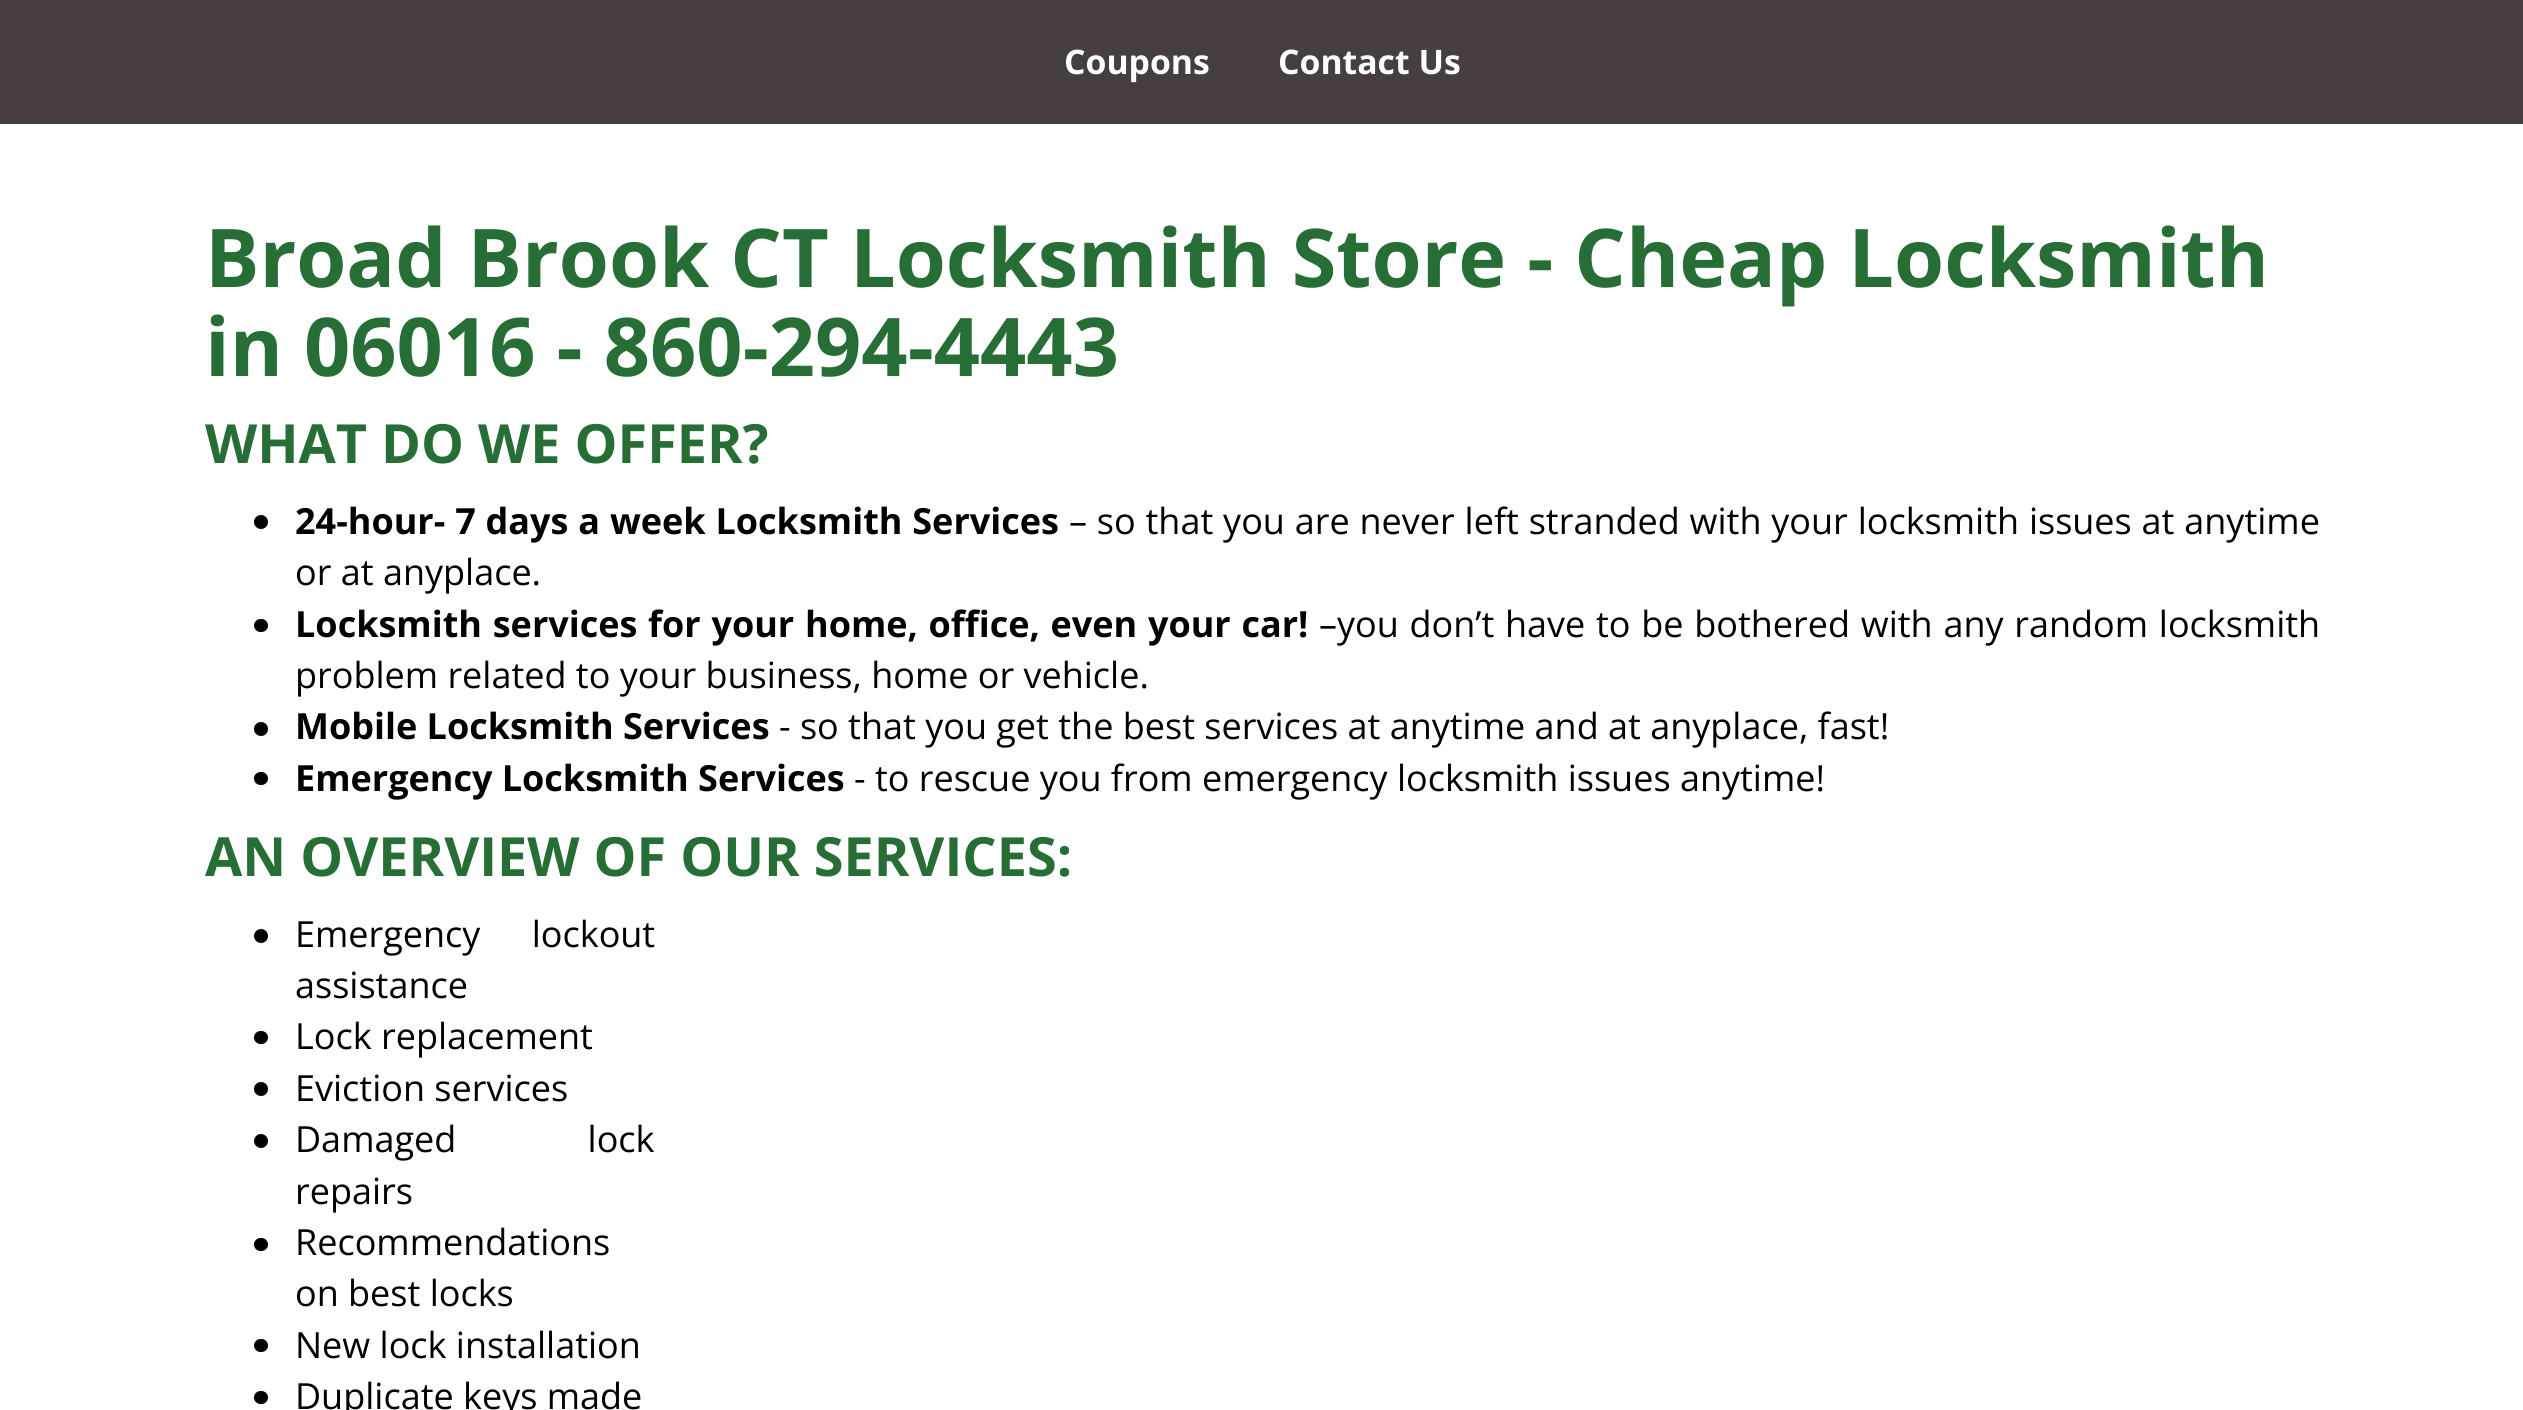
import math
import cairo

surface = cairo.ImageSurface(cairo.Format.RGB24, 2523, 1410)
ctx = cairo.Context(surface)
options = cairo.FontOptions()
options.set_hint_metrics(cairo.HintMetrics.OFF)
options.set_hint_style(cairo.HintStyle.NONE)
ctx.set_font_options(options)
ctx.set_miter_limit(4)


def ink(r, g, b):
    ctx.set_source_rgb(r / 255, g / 255, b / 255)


def write(x, y, s, family, size, color, bold=False, italic=False):
    ctx.select_font_face(family, cairo.FontSlant.ITALIC if italic else cairo.FontSlant.NORMAL, cairo.FontWeight.BOLD if bold else cairo.FontWeight.NORMAL)
    ctx.set_font_size(size)
    ink(*color)
    ctx.move_to(x, y)
    ctx.show_text(s)


def write_spaced(x, y, s, letter, word):
    ctx.move_to(x, y)
    for ch in s:
        ctx.show_text(ch)
        ctx.rel_move_to(letter + word * (ch == ' '), 0)


def block(x, y, w, h, *color):
    ink(*color)
    ctx.rectangle(x, y, w, h)
    ctx.fill()


def round_path(x, y, w, h, r):
    ctx.new_sub_path()
    for i, (u, v) in enumerate([(x + w - r, y + h - r), (x + r, y + h - r), (x + r, y + r), (x + w - r, y + r)]):
        ctx.arc(u, v, r, i * math.pi / 2, (i + 1) * math.pi / 2)
    ctx.close_path()


s1 = dict(family="Open Sans", size=33.75, color=(255, 255, 255), bold=True)
s2 = dict(family="Open Sans", size=81, color=(38, 110, 53), bold=True)
s3 = dict(family="Open Sans", size=54, color=(38, 110, 53), bold=True)
s4 = dict(family="Open Sans", size=36, color=(0, 0, 0))
s5 = dict(family="Open Sans", size=36, color=(0, 0, 0), bold=True)

ink(71, 62, 63)
ctx.paint()
write(1064, 74, "Coupons", **s1)
write(1278, 74, "Contact Us", **s1)
block(0, 124, 2523, 1286, 255, 255, 255)
write(205, 287, "Broad Brook CT Locksmith Store - Cheap Locksmith", **s2)
write(205, 376, "in 06016 - 860-294-4443", **s2)
write(205, 463, "WHAT DO WE OFFER?", **s3)
ink(0, 0, 0)
ctx.new_path()
ctx.arc(261, 522, 7, 0, 2 * math.pi)
ctx.fill()
ctx.set_font_size(36)
write_spaced(295, 534, "24-hour- 7 days a week Locksmith Services", 0, 0.5)
ctx.select_font_face("Open Sans")
write_spaced(1069, 534, "– so that you are never left stranded with your locksmith issues at anytime", 0, 0.5)
write(295, 585, "or at anyplace.", **s4)
round_path(254, 619, 14, 13, 6.5)
ctx.fill()
ctx.select_font_face("Open Sans", cairo.FontSlant.NORMAL, cairo.FontWeight.BOLD)
write_spaced(295, 637, "Locksmith services for your home, office, even your car!", 0, 1.4)
ctx.select_font_face("Open Sans")
write_spaced(1319, 637, "–you don’t have to be bothered with any random locksmith", 0, 1.4)
write(295, 688, "problem related to your business, home or vehicle.", **s4)
ctx.new_path()
ctx.arc(261, 729, 7, 0, 2 * math.pi)
ctx.fill()
write(295, 739, "Mobile Locksmith Services", **s5)
write(779, 739, "- so that you get the best services at anytime and at anyplace, fast!", **s4)
round_path(254, 772, 14, 13, 6.5)
ctx.fill()
write(295, 791, "Emergency Locksmith Services", **s5)
write(854, 791, "- to rescue you from emergency locksmith issues anytime!", **s4)
write(205, 876, "AN OVERVIEW OF OUR SERVICES:", **s3)
ink(0, 0, 0)
ctx.new_path()
ctx.arc(261, 936, 7, 0, 2 * math.pi)
ctx.fill()
ctx.select_font_face("Open Sans")
ctx.set_font_size(36)
write_spaced(295, 947, "Emergency lockout", 0, 42)
write(295, 998, "assistance", **s4)
round_path(254, 1031, 14, 13, 6.5)
ctx.fill()
write(295, 1049, "Lock replacement", **s4)
ctx.new_path()
ctx.arc(261, 1089, 7, 0, 2 * math.pi)
ctx.fill()
write(295, 1101, "Eviction services", **s4)
ctx.new_path()
ctx.arc(261, 1141, 7, 0, 2 * math.pi)
ctx.fill()
write_spaced(295, 1152, "Damaged lock", 0, 122)
write(295, 1204, "repairs", **s4)
round_path(254, 1238, 14, 13, 6.5)
ctx.fill()
write(295, 1255, "Recommendations", **s4)
write(295, 1306, "on best locks", **s4)
round_path(254, 1339, 14, 13, 6.5)
ctx.fill()
write(295, 1358, "New lock installation", **s4)
round_path(254, 1391, 14, 13, 6.5)
ctx.fill()
write(295, 1409, "Duplicate keys made", **s4)
surface.write_to_png("screenshot.png")
